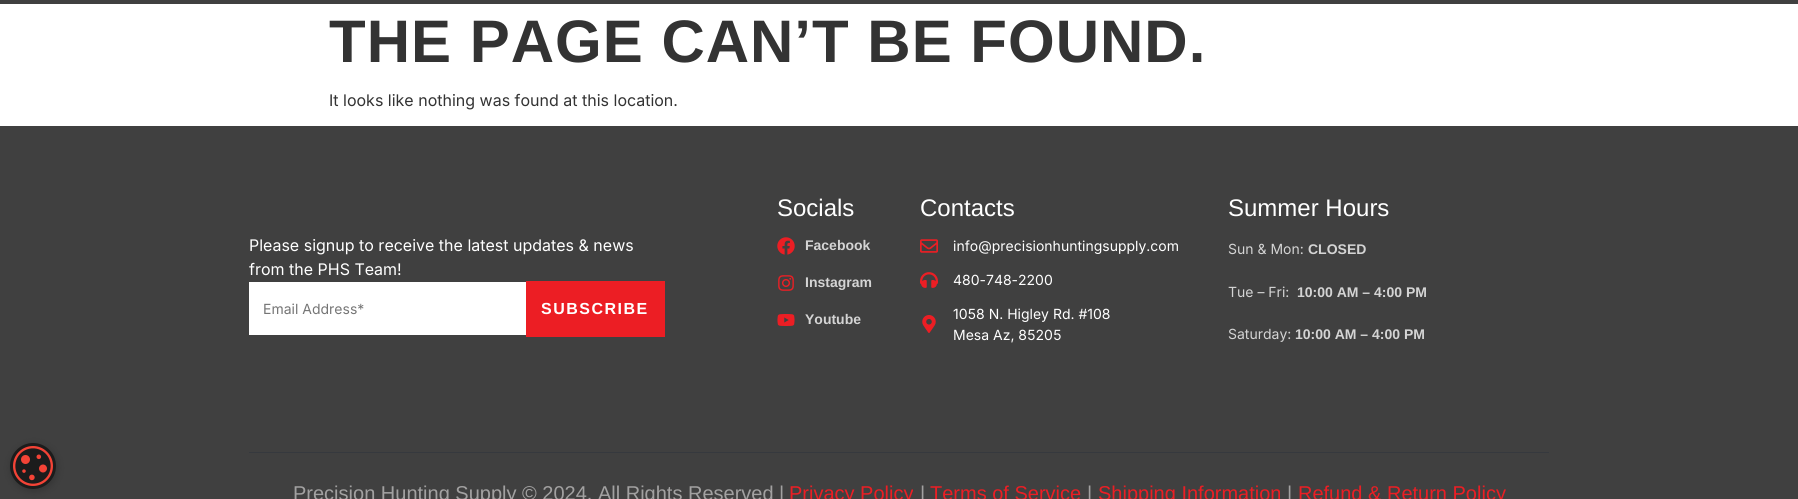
import math
import cairo

surface = cairo.ImageSurface(cairo.Format.RGB24, 1798, 499)
ctx = cairo.Context(surface)
options = cairo.FontOptions()
options.set_hint_metrics(cairo.HintMetrics.OFF)
options.set_hint_style(cairo.HintStyle.NONE)
ctx.set_font_options(options)
ctx.set_miter_limit(4)


def ink(r, g, b):
    ctx.set_source_rgb(r / 255, g / 255, b / 255)


def write(x, y, s, family, size, color, bold=False, italic=False):
    ctx.select_font_face(family, cairo.FontSlant.ITALIC if italic else cairo.FontSlant.NORMAL, cairo.FontWeight.BOLD if bold else cairo.FontWeight.NORMAL)
    ctx.set_font_size(size)
    ink(*color)
    ctx.move_to(x, y)
    ctx.show_text(s)


def write_spaced(x, y, s, letter, word):
    ctx.move_to(x, y)
    for ch in s:
        ctx.show_text(ch)
        ctx.rel_move_to(letter + word * (ch == ' '), 0)


def block(x, y, w, h, *color):
    ink(*color)
    ctx.rectangle(x, y, w, h)
    ctx.fill()


def round_path(x, y, w, h, r):
    ctx.new_sub_path()
    for i, (u, v) in enumerate([(x + w - r, y + h - r), (x + r, y + h - r), (x + r, y + r), (x + w - r, y + r)]):
        ctx.arc(u, v, r, i * math.pi / 2, (i + 1) * math.pi / 2)
    ctx.close_path()


def blur_box(x, y, w, h, r, blur, alpha):
    ctx.push_group_with_content(cairo.Content.ALPHA)
    ctx.set_operator(cairo.Operator.SOURCE)
    for i in range(15, -16, -2):
        e = blur * i / 6
        if min(w, h) + 2 * e > 0:
            ctx.set_source_rgba(0, 0, 0, alpha * math.erfc((i - 1) / 8.5) / 2)
            round_path(x - e, y - e, w + 2 * e, h + 2 * e, max(0, min(r + e + blur * .6, min(w, h) / 2 + e)))
            ctx.fill()
    ctx.mask(ctx.pop_group())


def paste(path, x, y, w, h):
    ctx.save()
    ctx.set_source_surface(cairo.ImageSurface.create_from_png(path), x, y)
    ctx.rectangle(x, y, w, h)
    ctx.fill()
    ctx.restore()


s1 = dict(family="Inter", size=16, color=(51, 51, 51))
s2 = dict(family="Inter", size=16, color=(255, 255, 255))
s3 = dict(family="Inter", size=14, color=(117, 117, 117))
s4 = dict(family="Liberation Sans", size=24, color=(255, 255, 255))
s5 = dict(family="Liberation Sans", size=14, color=(212, 212, 212), bold=True)
s6 = dict(family="Inter", size=14, color=(255, 255, 255))
s7 = dict(family="Inter", size=14, color=(212, 212, 212))
s8 = dict(family="Liberation Sans", size=20, color=(162, 161, 161))
s9 = dict(family="Liberation Sans", size=20, color=(236, 30, 36))

ink(255, 255, 255)
ctx.paint()
block(0, 0, 1798, 4, 64, 64, 64)
ctx.select_font_face("Liberation Sans", cairo.FontSlant.NORMAL, cairo.FontWeight.BOLD)
ctx.set_font_size(60)
ink(51, 51, 51)
write_spaced(329, 62, "THE PAGE CAN’T BE FOUND.", 1, 0)
write(329, 106, "It looks like nothing was found at this location.", **s1)
block(0, 126, 1798, 373, 64, 64, 64)
ink(0, 0, 0)
blur_box(11, 445, 46, 46, 23, 4, 0.2)
ink(28, 28, 28)
ctx.arc(33, 466, 23, 0, 2 * math.pi)
ctx.fill()
paste("pic1.png", 13, 446, 40, 40)
write(249, 251, "Please signup to receive the latest updates & news", **s2)
write(249, 275, "from the PHS Team!", **s2)
block(249, 282, 277, 53, 255, 255, 255)
write(263, 314, "Email Address*", **s3)
block(526, 281, 139, 56, 236, 30, 36)
ctx.select_font_face("Liberation Sans", cairo.FontSlant.NORMAL, cairo.FontWeight.BOLD)
ctx.set_font_size(16)
ink(255, 255, 255)
write_spaced(541, 314, "SUBSCRIBE", 1.5, 0)
write(777, 216, "Socials", **s4)
paste("pic2.png", 777, 237, 18, 18)
write(805, 250, "Facebook", **s5)
paste("pic3.png", 778, 275, 16, 16)
write(805, 287, "Instagram", **s5)
paste("pic4.png", 777, 314, 18, 12)
write(805, 324, "Youtube", **s5)
write(920, 216, "Contacts", **s4)
paste("pic5.png", 920, 239, 18, 14)
write(953, 251, "info@precisionhuntingsupply.com", **s6)
paste("pic6.png", 920, 272, 18, 16)
write(953, 285, "480-748-2200", **s6)
paste("pic7.png", 922, 315, 14, 18)
write(953, 319, "1058 N. Higley Rd. #108", **s6)
write(953, 340, "Mesa Az, 85205", **s6)
write(1228, 216, "Summer Hours", **s4)
write(1228, 254, "Sun & Mon:", **s7)
write(1308, 254, "CLOSED", **s5)
write(1228, 297, "Tue – Fri:", **s7)
write(1297, 297, "10:00 AM – 4:00 PM", **s5)
write(1228, 339, "Saturday:", **s7)
write(1295, 339, "10:00 AM – 4:00 PM", **s5)
block(249, 452, 1300, 1, 54, 57, 62)
write(293, 500, "Precision Hunting Supply © 2024. All Rights Reserved |", **s8)
write(789, 500, "Privacy Policy", **s9)
write(920, 500, "|", **s8)
write(930, 500, "Terms of Service", **s9)
write(1087, 500, "|", **s8)
write(1098, 500, "Shipping Information", **s9)
write(1287, 500, "|", **s8)
write(1298, 500, "Refund & Return Policy", **s9)
surface.write_to_png("screenshot.png")
